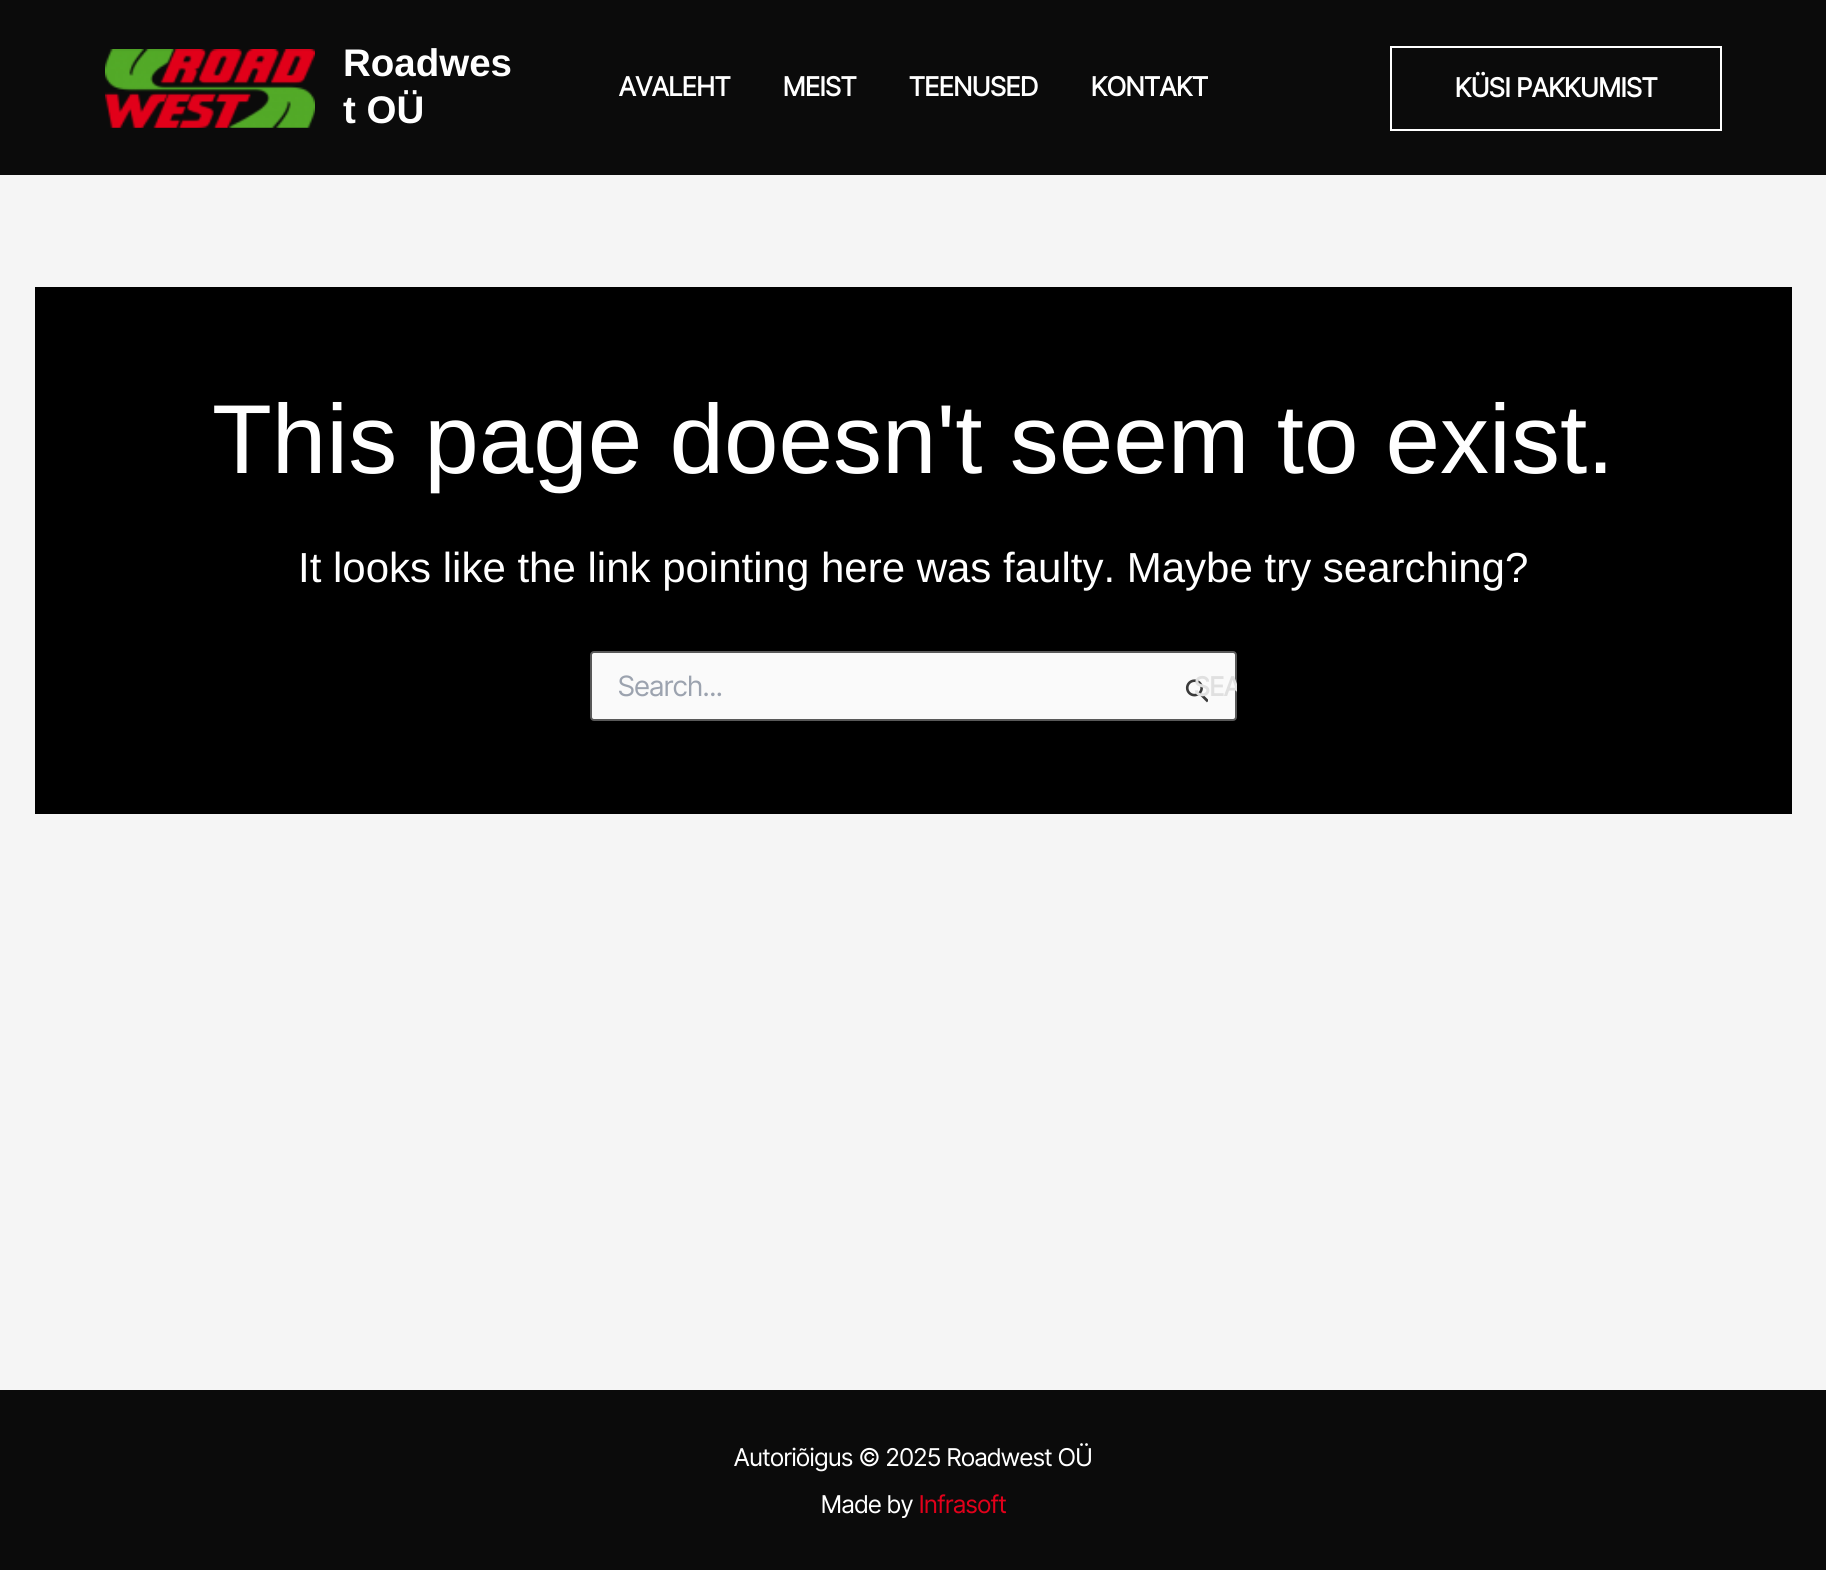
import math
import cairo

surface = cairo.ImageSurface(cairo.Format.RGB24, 1826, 1570)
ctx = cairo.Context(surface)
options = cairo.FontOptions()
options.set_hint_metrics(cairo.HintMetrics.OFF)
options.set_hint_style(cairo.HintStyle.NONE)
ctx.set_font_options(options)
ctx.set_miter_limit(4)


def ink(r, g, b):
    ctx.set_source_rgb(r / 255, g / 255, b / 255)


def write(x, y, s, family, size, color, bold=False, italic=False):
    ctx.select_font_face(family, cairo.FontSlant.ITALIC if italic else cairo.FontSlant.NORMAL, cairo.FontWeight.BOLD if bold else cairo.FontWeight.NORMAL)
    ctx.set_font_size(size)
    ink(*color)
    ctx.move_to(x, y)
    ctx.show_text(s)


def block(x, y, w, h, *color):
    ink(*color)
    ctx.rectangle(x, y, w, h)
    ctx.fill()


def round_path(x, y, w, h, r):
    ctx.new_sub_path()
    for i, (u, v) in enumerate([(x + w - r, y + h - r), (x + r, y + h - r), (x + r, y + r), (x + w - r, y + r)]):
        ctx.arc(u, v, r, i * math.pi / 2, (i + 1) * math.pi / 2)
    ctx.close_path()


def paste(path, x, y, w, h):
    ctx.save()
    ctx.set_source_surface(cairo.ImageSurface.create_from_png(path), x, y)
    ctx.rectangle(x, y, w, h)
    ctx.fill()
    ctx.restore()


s1 = dict(family="Liberation Sans", size=38.5, color=(255, 255, 255), bold=True)
s2 = dict(family="Inter Tight", size=26.25, color=(255, 255, 255), bold=True)
s3 = dict(family="Liberation Sans", size=98, color=(255, 255, 255))
s4 = dict(family="Liberation Sans", size=42, color=(255, 255, 255))
s5 = dict(family="Inter Tight", size=28, color=(156, 163, 175))
s6 = dict(family="Inter Tight", size=26.25, color=(224, 224, 224), bold=True)
s7 = dict(family="Inter Tight", size=24.5, color=(255, 255, 255))
s8 = dict(family="Inter Tight", size=24.5, color=(226, 0, 26))

ink(245, 245, 245)
ctx.paint()
block(0, 0, 1826, 175, 11, 11, 11)
paste("pic1.png", 105, 49, 210, 79)
write(343, 76, "Roadwes", **s1)
write(343, 123, "t OÜ", **s1)
write(619, 96, "AVALEHT", **s2)
write(783, 96, "MEIST", **s2)
write(909, 96, "TEENUSED", **s2)
write(1091, 96, "KONTAKT", **s2)
ctx.rectangle(1391, 47, 330, 83)
ctx.stroke()
write(1455, 97, "KÜSI PAKKUMIST", **s2)
block(35, 287, 1757, 527, 0, 0, 0)
write(212, 473, "This page doesn't seem to exist.", **s3)
write(298, 582, "It looks like the link pointing here was faulty. Maybe try searching?", **s4)
ink(250, 250, 250)
round_path(591, 652, 645, 68, 3)
ctx.fill_preserve()
ink(89, 89, 89)
ctx.stroke()
write(618, 696, "Search...", **s5)
paste("pic2.png", 1185, 679, 23, 24)
ctx.save()
round_path(1159, 651, 78, 72, 4)
ctx.clip()
write(1194, 696, "SEA", **s6)
ctx.restore()
block(0, 1390, 1826, 180, 11, 11, 11)
write(734, 1466, "Autoriõigus © 2025 Roadwest OÜ", **s7)
write(821, 1513, "Made by", **s7)
write(919, 1513, "Infrasoft", **s8)
surface.write_to_png("screenshot.png")
